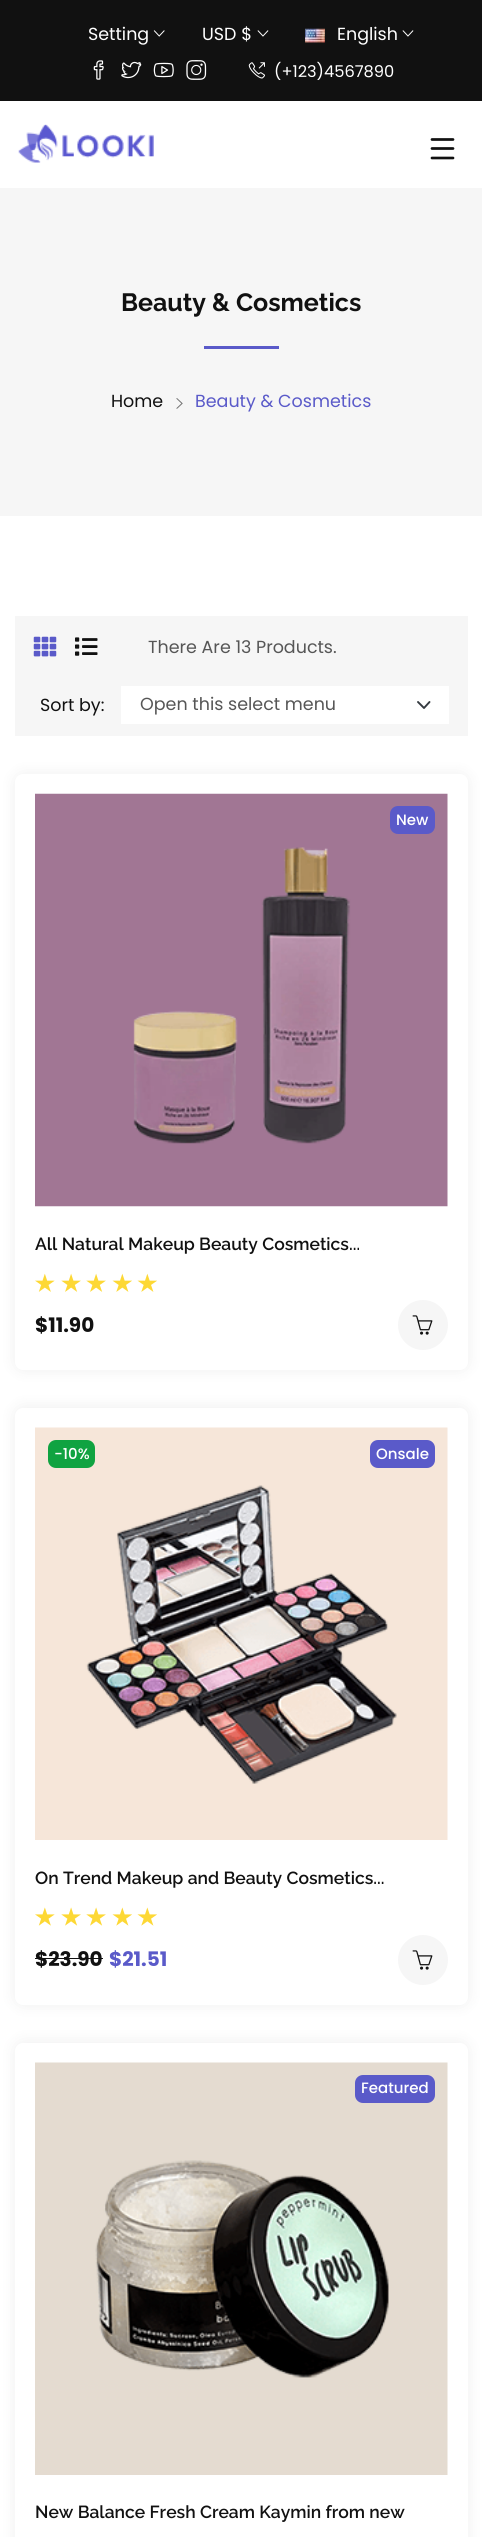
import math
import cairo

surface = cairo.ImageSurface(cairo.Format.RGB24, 482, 2537)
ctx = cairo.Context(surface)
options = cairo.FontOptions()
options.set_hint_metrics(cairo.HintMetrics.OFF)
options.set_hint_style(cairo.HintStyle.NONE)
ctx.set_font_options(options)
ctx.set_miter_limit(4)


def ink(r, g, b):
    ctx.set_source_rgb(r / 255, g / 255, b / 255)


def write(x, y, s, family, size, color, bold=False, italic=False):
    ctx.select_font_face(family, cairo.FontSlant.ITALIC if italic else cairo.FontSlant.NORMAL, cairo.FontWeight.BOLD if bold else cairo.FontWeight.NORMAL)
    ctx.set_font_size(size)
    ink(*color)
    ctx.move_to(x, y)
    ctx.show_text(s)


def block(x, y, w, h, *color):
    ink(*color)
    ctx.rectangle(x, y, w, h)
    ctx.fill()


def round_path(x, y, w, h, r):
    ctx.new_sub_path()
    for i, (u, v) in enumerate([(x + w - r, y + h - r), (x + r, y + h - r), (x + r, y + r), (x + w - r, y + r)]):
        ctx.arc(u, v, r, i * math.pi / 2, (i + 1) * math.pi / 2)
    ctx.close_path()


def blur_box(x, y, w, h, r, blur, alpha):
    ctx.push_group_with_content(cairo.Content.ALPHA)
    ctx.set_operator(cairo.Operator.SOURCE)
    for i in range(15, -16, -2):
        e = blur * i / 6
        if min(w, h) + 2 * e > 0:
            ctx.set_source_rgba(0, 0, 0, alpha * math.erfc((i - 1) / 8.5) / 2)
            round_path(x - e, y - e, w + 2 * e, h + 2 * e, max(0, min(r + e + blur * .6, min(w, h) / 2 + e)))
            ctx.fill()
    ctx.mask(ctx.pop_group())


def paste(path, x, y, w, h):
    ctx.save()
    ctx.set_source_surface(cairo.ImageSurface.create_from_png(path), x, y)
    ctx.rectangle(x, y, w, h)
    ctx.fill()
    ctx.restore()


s1 = dict(family="Poppins", size=17.5, color=(255, 255, 255))
s2 = dict(family="Poppins", size=16.25, color=(255, 255, 255))
s3 = dict(family="Raleway", size=25, color=(17, 17, 17), bold=True)
s4 = dict(family="Poppins", size=17.5, color=(17, 17, 17))
s5 = dict(family="Poppins", size=17.5, color=(90, 90, 201))
s6 = dict(family="Poppins", size=17.5, color=(86, 86, 86))
s7 = dict(family="Poppins Medium", size=15, color=(255, 255, 255))
s8 = dict(family="Raleway SemiBold", size=17.5, color=(17, 17, 17))
s9 = dict(family="Poppins", size=20, color=(17, 17, 17), bold=True)
s10 = dict(family="Poppins", size=20, color=(90, 90, 201), bold=True)

ink(255, 255, 255)
ctx.paint()
block(0, 0, 482, 101, 17, 17, 17)
write(88, 40, "Setting", **s1)
paste("pic1.png", 153, 30, 12, 7)
write(202, 40, "USD $", **s1)
paste("pic2.png", 257, 30, 12, 7)
paste("pic3.png", 305, 28, 20, 15)
write(337, 40, "English", **s1)
paste("pic2.png", 402, 30, 12, 7)
paste("pic4.png", 93, 60, 11, 20)
paste("pic5.png", 121, 61, 21, 18)
paste("pic6.png", 153, 62, 21, 16)
paste("pic7.png", 186, 60, 21, 20)
paste("pic8.png", 248, 62, 17, 17)
write(274, 77, "(+123)4567890", **s2)
paste("pic9.png", 18, 124, 136, 39)
ctx.new_path()
ctx.move_to(432, 139.5)
ctx.line_to(453, 139.5)
ctx.move_to(432, 148.5)
ctx.line_to(453, 148.5)
ctx.move_to(432, 158)
ctx.line_to(453, 158)
ink(17, 17, 17)
ctx.set_line_width(2.7)
ctx.set_line_cap(cairo.LineCap.ROUND)
ctx.stroke()
block(0, 188, 482, 328, 246, 246, 246)
write(121, 311, "Beauty & Cosmetics", **s3)
block(204, 346, 75, 3, 90, 90, 201)
write(111, 407, "Home", **s4)
paste("pic10.png", 176, 398, 7, 11)
write(195, 407, "Beauty & Cosmetics", **s5)
block(15, 616, 453, 120, 246, 246, 246)
paste("pic11.png", 33, 636, 24, 21)
paste("pic12.png", 75, 637, 23, 19)
write(148, 653, "There Are 13 Products.", **s6)
write(40, 711, "Sort by:", **s4)
block(121, 686, 328, 38, 255, 255, 255)
ctx.new_path()
ctx.move_to(418, 702)
ctx.line_to(424, 708)
ctx.line_to(429.5, 702)
ink(52, 58, 64)
ctx.set_line_width(1.9)
ctx.set_line_join(cairo.LineJoin.ROUND)
ctx.stroke()
write(140, 710, "Open this select menu", **s6)
ink(0, 0, 0)
blur_box(14, 773, 455, 598, 9, 7.5, 0.06)
ink(255, 255, 255)
round_path(15, 774, 453, 596, 8)
ctx.fill()
paste("pic13.png", 35, 793, 413, 414)
ink(90, 90, 201)
round_path(390, 806, 45, 28, 8)
ctx.fill()
write(396, 825, "New", **s7)
write(35, 1250, "All Natural Makeup Beauty Cosmetics...", **s8)
paste("pic14.png", 35, 1273, 20, 19)
paste("pic15.png", 61, 1273, 20, 19)
paste("pic15.png", 86, 1273, 20, 19)
paste("pic16.png", 112, 1273, 20, 19)
paste("pic16.png", 137, 1273, 20, 19)
write(35, 1332, "$11.90", **s9)
ink(246, 246, 246)
ctx.new_path()
ctx.arc(423, 1325, 25, 0, 2 * math.pi)
ctx.fill()
paste("pic17.png", 412, 1315, 21, 20)
ink(0, 0, 0)
blur_box(14, 1406, 455, 600, 9, 7.5, 0.06)
ink(255, 255, 255)
round_path(15, 1408, 453, 597, 8)
ctx.fill()
paste("pic18.png", 35, 1427, 413, 413)
ink(16, 163, 65)
round_path(48, 1440, 47, 28, 8)
ctx.fill()
write(54, 1459, "-10%", **s7)
ink(90, 90, 201)
round_path(370, 1440, 65, 28, 8)
ctx.fill()
write(376, 1459, "Onsale", **s7)
write(35, 1884, "On Trend Makeup and Beauty Cosmetics...", **s8)
paste("pic19.png", 35, 1907, 20, 19)
paste("pic20.png", 61, 1907, 20, 19)
paste("pic20.png", 86, 1907, 20, 19)
paste("pic21.png", 112, 1907, 20, 19)
paste("pic21.png", 137, 1907, 20, 19)
write(35, 1966, "$23.90", **s9)
block(35, 1958, 68, 1, 17, 17, 17)
write(109, 1966, "$21.51", **s10)
ink(246, 246, 246)
ctx.new_path()
ctx.arc(423, 1960, 25, 0, 2 * math.pi)
ctx.fill()
paste("pic17.png", 412, 1950, 21, 20)
ink(0, 0, 0)
blur_box(14, 2041, 455, 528, 9, 7.5, 0.06)
ink(255, 255, 255)
round_path(15, 2043, 453, 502, 8)
ctx.fill()
paste("pic22.png", 35, 2062, 413, 413)
ink(90, 90, 201)
round_path(355, 2075, 80, 28, 8)
ctx.fill()
write(361, 2093, "Featured", **s7)
write(35, 2518, "New Balance Fresh Cream Kaymin from new", **s8)
surface.write_to_png("screenshot.png")
